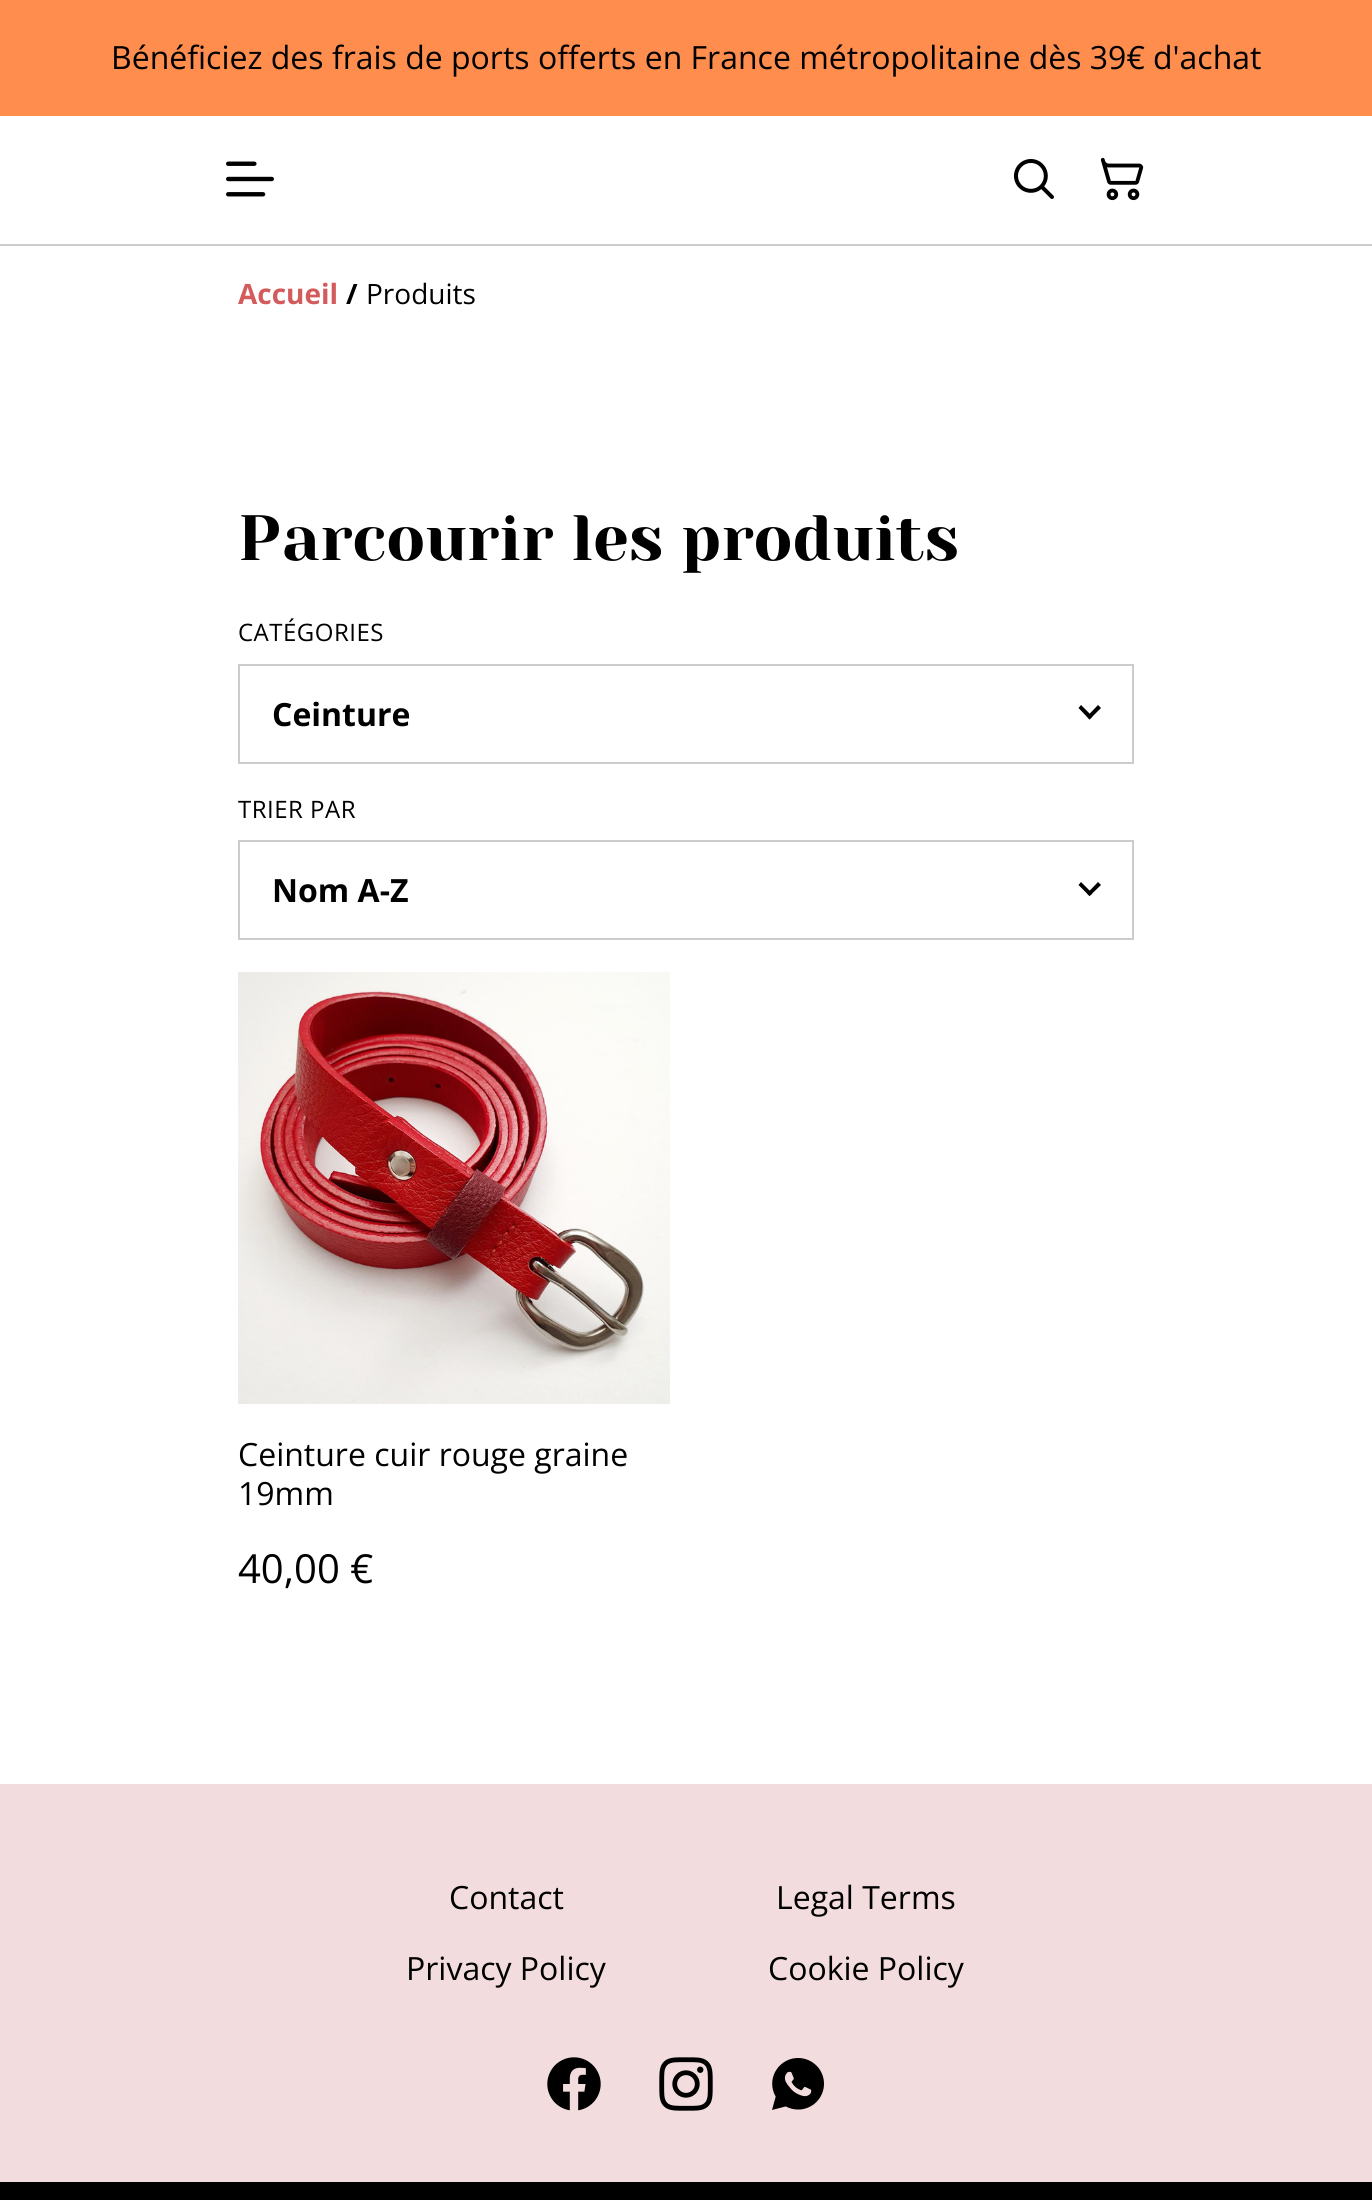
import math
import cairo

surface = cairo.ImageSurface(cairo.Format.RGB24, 1372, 2200)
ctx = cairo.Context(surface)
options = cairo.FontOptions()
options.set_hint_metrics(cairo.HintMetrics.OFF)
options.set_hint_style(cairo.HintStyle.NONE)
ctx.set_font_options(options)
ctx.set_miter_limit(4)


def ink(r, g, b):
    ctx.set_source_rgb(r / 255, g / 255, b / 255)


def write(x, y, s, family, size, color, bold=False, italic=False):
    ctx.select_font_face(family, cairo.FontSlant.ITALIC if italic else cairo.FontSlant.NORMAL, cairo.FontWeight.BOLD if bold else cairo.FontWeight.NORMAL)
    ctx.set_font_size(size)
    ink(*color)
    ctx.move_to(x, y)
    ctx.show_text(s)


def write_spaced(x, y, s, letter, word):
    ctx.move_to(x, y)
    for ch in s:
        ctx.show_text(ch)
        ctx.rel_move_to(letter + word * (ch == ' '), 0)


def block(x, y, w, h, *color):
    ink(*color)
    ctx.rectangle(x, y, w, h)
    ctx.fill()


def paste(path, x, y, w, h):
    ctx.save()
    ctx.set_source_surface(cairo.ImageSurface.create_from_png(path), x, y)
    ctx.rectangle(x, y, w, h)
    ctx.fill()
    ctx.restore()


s1 = dict(family="Open Sans", size=32, color=(0, 0, 0))
s2 = dict(family="Open Sans", size=28, color=(212, 91, 91), bold=True)
s3 = dict(family="Open Sans", size=28, color=(0, 0, 0), bold=True)
s4 = dict(family="Open Sans", size=28, color=(0, 0, 0))
s5 = dict(family="Yeseva One", size=64, color=(0, 0, 0))
s6 = dict(family="Open Sans", size=32, color=(0, 0, 0), bold=True)
s7 = dict(family="Open Sans", size=40, color=(0, 0, 0))

ink(255, 255, 255)
ctx.paint()
block(0, 0, 1372, 116, 255, 141, 78)
write(111, 69, "Bénéficiez des frais de ports offerts en France métropolitaine dès 39€ d'achat", **s1)
block(0, 244, 1372, 2, 204, 204, 204)
paste("pic1.png", 226, 161, 48, 36)
paste("pic2.png", 1014, 159, 40, 40)
paste("pic3.png", 1100, 157, 44, 44)
write(238, 304, "Accueil", **s2)
write(346, 304, "/", **s3)
write(366, 304, "Produits", **s4)
write(238, 560, "Parcourir les produits", **s5)
ctx.select_font_face("Open Sans")
ctx.set_font_size(24)
write_spaced(238, 641, "CATÉGORIES", 0.5, 0)
ctx.rectangle(239, 665, 894, 98)
ink(204, 204, 204)
ctx.stroke()
write(272, 726, "Ceinture", **s6)
ctx.new_path()
ctx.move_to(1098, 705)
ctx.line_to(1101, 708)
ctx.line_to(1089.5, 719.5)
ctx.line_to(1087, 716.5)
ctx.close_path()
ctx.fill()
ctx.new_path()
ctx.move_to(1081, 705)
ctx.line_to(1092.5, 716.5)
ctx.line_to(1089.5, 719.5)
ctx.line_to(1078.5, 708)
ctx.close_path()
ctx.fill()
ctx.select_font_face("Open Sans")
ctx.set_font_size(24)
write_spaced(238, 818, "TRIER PAR", 0.5, 0)
ctx.rectangle(239, 841, 894, 98)
ink(204, 204, 204)
ctx.stroke()
write(272, 902, "Nom A-Z", **s6)
ctx.new_path()
ctx.move_to(1098, 882)
ctx.line_to(1101, 885)
ctx.line_to(1089.5, 896)
ctx.line_to(1087, 893.5)
ctx.close_path()
ctx.fill()
ctx.new_path()
ctx.move_to(1081, 882)
ctx.line_to(1092.5, 893.5)
ctx.line_to(1089.5, 896)
ctx.line_to(1078.5, 885)
ctx.close_path()
ctx.fill()
paste("pic4.png", 238, 972, 432, 432)
write(238, 1466, "Ceinture cuir rouge graine", **s1)
write(238, 1505, "19mm", **s1)
write(238, 1583, "40,00 €", **s7)
block(0, 1784, 1372, 398, 243, 220, 221)
write(449, 1909, "Contact", **s1)
write(776, 1909, "Legal Terms", **s1)
write(406, 1980, "Privacy Policy", **s1)
write(768, 1980, "Cookie Policy", **s1)
paste("pic5.png", 547, 2057, 54, 54)
paste("pic6.png", 659, 2057, 54, 54)
paste("pic7.png", 772, 2058, 52, 52)
block(0, 2182, 1372, 18, 0, 0, 0)
surface.write_to_png("screenshot.png")
